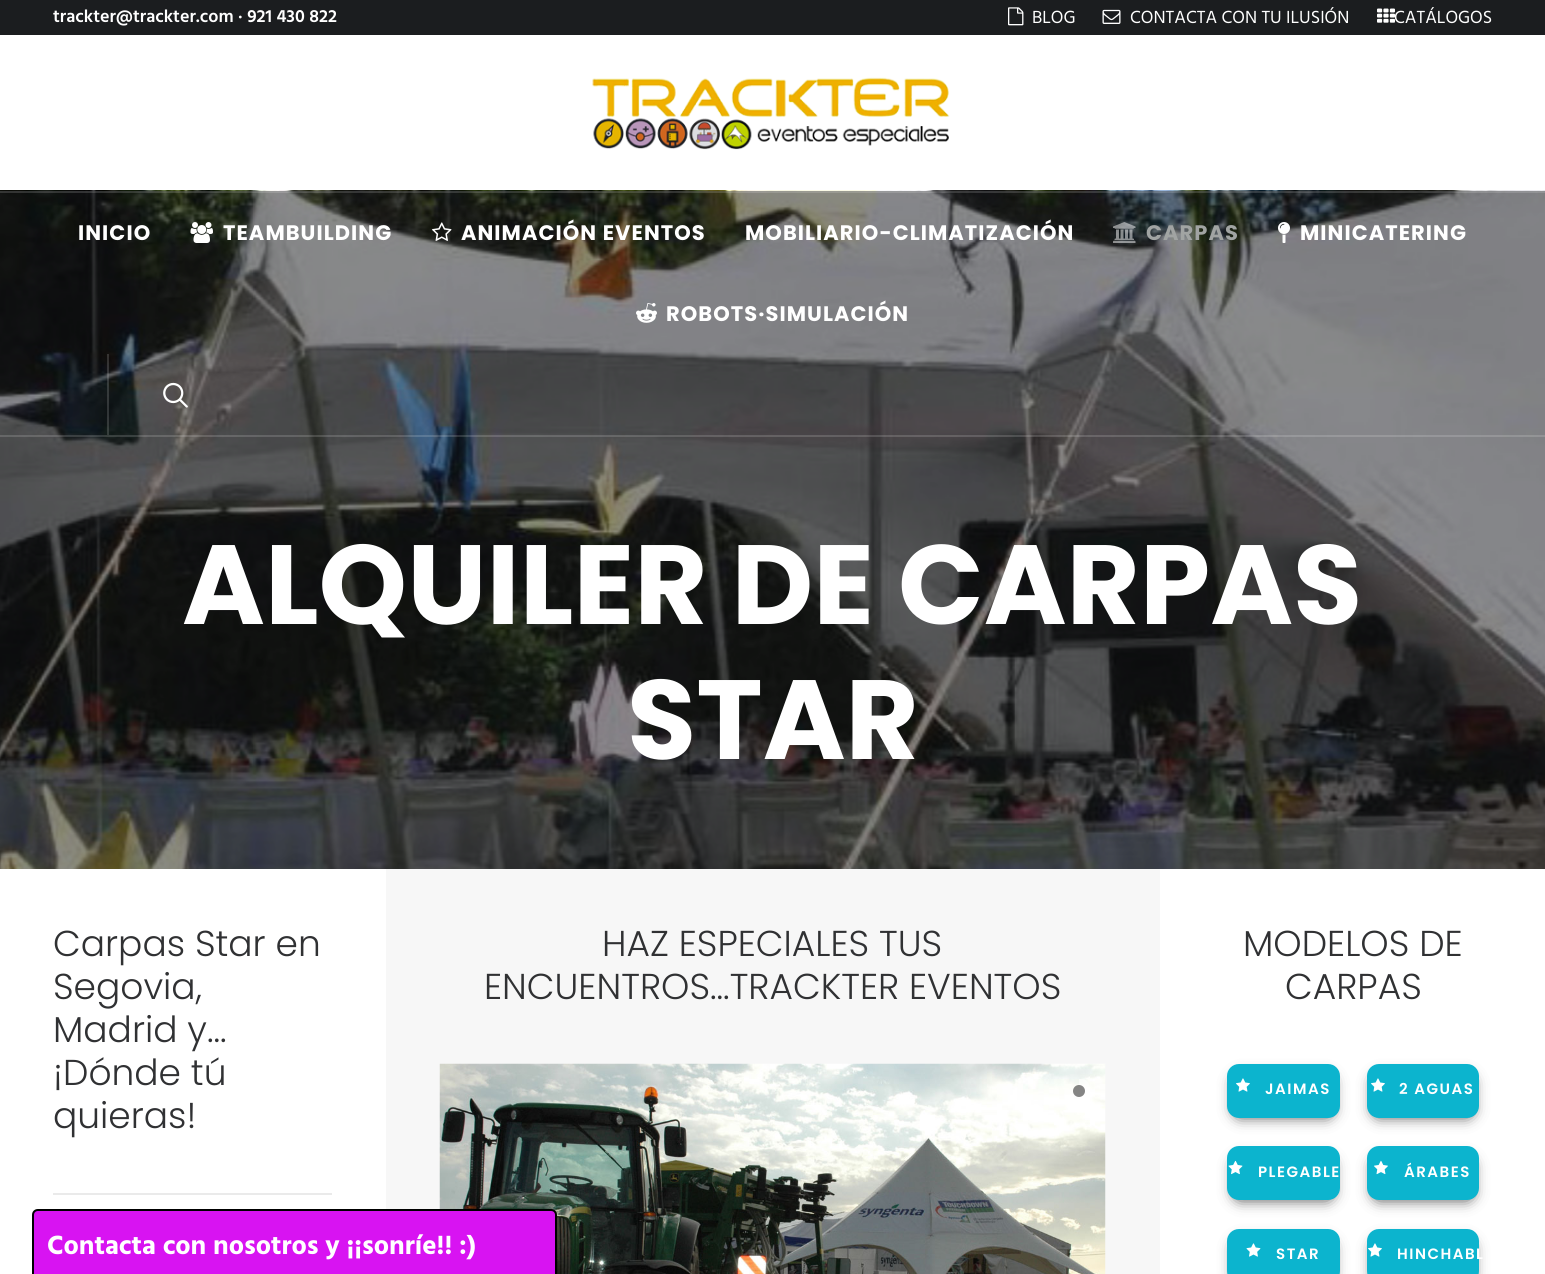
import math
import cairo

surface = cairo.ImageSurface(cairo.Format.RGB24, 1545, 1274)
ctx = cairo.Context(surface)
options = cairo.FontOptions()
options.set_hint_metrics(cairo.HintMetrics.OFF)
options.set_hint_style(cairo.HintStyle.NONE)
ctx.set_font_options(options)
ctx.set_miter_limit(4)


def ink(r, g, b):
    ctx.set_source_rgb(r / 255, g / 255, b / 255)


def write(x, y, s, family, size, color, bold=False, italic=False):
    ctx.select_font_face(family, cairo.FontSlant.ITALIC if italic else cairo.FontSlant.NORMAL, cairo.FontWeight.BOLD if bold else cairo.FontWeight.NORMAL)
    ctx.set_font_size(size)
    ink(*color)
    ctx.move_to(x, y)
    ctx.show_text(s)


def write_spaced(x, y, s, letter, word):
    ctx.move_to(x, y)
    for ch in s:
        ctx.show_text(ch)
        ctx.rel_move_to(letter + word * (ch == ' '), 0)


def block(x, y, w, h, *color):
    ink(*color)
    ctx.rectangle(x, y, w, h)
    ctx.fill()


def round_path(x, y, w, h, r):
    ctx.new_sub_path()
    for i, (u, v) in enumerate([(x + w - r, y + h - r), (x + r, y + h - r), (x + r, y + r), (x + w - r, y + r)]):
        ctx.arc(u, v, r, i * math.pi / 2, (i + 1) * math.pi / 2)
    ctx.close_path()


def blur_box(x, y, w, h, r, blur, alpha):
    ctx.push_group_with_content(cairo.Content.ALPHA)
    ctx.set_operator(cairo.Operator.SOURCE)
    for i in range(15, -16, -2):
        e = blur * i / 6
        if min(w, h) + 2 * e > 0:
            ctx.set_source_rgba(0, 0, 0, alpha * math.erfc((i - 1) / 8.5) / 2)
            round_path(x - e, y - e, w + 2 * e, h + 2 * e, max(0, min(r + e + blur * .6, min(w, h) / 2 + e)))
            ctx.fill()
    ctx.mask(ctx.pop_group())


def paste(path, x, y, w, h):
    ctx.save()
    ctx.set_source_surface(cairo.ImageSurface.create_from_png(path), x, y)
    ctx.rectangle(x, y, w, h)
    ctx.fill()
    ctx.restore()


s1 = dict(family="Hind SemiBold", size=18, color=(255, 255, 255))
s2 = dict(family="Hind", size=18, color=(255, 255, 255))
s3 = dict(family="Poppins", size=112.5, color=(255, 255, 255), bold=True)
s4 = dict(family="Poppins Light", size=36, color=(48, 49, 51))
s5 = dict(family="Hind", size=27, color=(255, 255, 255), bold=True)

ink(255, 255, 255)
ctx.paint()
block(0, 0, 1545, 35, 27, 29, 31)
write(53, 22, "trackter@trackter.com · 921 430 822", **s1)
paste("pic1.png", 1008, 7, 16, 19)
write(1032, 23, "BLOG", **s2)
paste("pic2.png", 1102, 9, 19, 15)
write(1130, 23, "CONTACTA CON TU ILUSIÓN", **s2)
paste("pic3.png", 1377, 8, 18, 15)
write(1394, 23, "CATÁLOGOS", **s2)
paste("pic4.png", 592, 77, 358, 73)
paste("pic11.png", 0, 190, 1545, 679)
ctx.set_source_rgba(1, 1, 1, 0.15)
ctx.rectangle(0, 191, 1545, 2)
ctx.fill()
ctx.rectangle(0, 435, 1545, 2)
ctx.fill()
ctx.select_font_face("Poppins", cairo.FontSlant.NORMAL, cairo.FontWeight.BOLD)
ctx.set_font_size(21)
ink(255, 255, 255)
write_spaced(78, 240, "INICIO", 1.05, 0)
paste("pic5.png", 190, 222, 23, 21)
write_spaced(223, 240, "TEAMBUILDING", 1.05, 0)
paste("pic6.png", 432, 222, 20, 19)
write_spaced(461, 240, "ANIMACIÓN EVENTOS", 1.05, 0)
write_spaced(745, 240, "MOBILIARIO-CLIMATIZACIÓN", 1.05, 0)
paste("pic7.png", 1113, 222, 23, 21)
ink(161, 164, 163)
write_spaced(1146, 240, "CARPAS", 1.05, 0)
paste("pic8.png", 1278, 222, 12, 21)
ink(255, 255, 255)
write_spaced(1300, 240, "MINICATERING", 1.05, 0)
paste("pic9.png", 636, 303, 21, 20)
write_spaced(666, 321, "ROBOTS·SIMULACIÓN", 1.05, 0)
ctx.set_source_rgba(1, 1, 1, 0.15)
ctx.rectangle(107, 354, 2, 81)
ctx.fill()
paste("pic10.png", 163, 382, 25, 26)
write(182, 624, "ALQUILER DE CARPAS", **s3)
write(627, 759, "STAR", **s3)
write(53, 956, "Carpas Star en", **s4)
write(53, 999, "Segovia,", **s4)
write(53, 1042, "Madrid y...", **s4)
write(53, 1085, "¡Dónde tú", **s4)
write(53, 1128, "quieras!", **s4)
block(53, 1193, 279, 2, 234, 234, 234)
block(386, 869, 774, 405, 247, 247, 247)
write(602, 956, "HAZ ESPECIALES TUS", **s4)
write(484, 999, "ENCUENTROS...TRACKTER EVENTOS", **s4)
paste("pic12.png", 439, 1063, 667, 211)
ctx.save()
ctx.rectangle(1079, 1079, 12, 24)
ctx.clip()
ctx.set_source_rgba(1, 1, 1, 0.65)
ctx.new_path()
ctx.move_to(1089.5, 1085.5)
ctx.line_to(1067.5, 1094.5)
ctx.curve_to(1061.5, 1079.5, 1084, 1071, 1089.5, 1085.5)
ctx.close_path()
ctx.fill()
ctx.restore()
ctx.set_source_rgba(0.267, 0.267, 0.267, 0.65)
ctx.arc(1079, 1091, 6, 0, 2 * math.pi)
ctx.fill()
write(1243, 956, "MODELOS DE", **s4)
write(1285, 999, "CARPAS", **s4)
ink(0, 0, 0)
blur_box(1235, 1077, 97, 39, 5, 7.5, 0.8)
ink(12, 180, 206)
round_path(1228, 1065, 111, 52, 11)
ctx.fill_preserve()
ctx.stroke()
paste("pic13.png", 1236, 1078, 14, 14)
ctx.select_font_face("Poppins SemiBold")
ctx.set_font_size(15)
ink(255, 255, 255)
write_spaced(1265, 1094, "JAIMAS", 1.5, 0)
ink(0, 0, 0)
blur_box(1235, 1160, 97, 39, 5, 7.5, 0.8)
ink(12, 180, 206)
round_path(1228, 1147, 111, 52, 11)
ctx.fill_preserve()
ctx.stroke()
paste("pic14.png", 1228, 1160, 15, 15)
ink(255, 255, 255)
write_spaced(1258, 1177, "PLEGABLE", 1.5, 0)
ink(0, 0, 0)
blur_box(1235, 1242, 97, 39, 5, 7.5, 0.8)
ink(12, 180, 206)
round_path(1228, 1230, 111, 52, 11)
ctx.fill_preserve()
ctx.stroke()
paste("pic15.png", 1246, 1243, 15, 14)
ink(255, 255, 255)
write_spaced(1276, 1259, "STAR", 1.5, 0)
ink(0, 0, 0)
blur_box(1374, 1077, 98, 39, 5, 7.5, 0.8)
ink(12, 180, 206)
round_path(1368, 1065, 110, 52, 11)
ctx.fill_preserve()
ctx.stroke()
paste("pic13.png", 1371, 1078, 14, 14)
ink(255, 255, 255)
write_spaced(1399, 1094, "2 AGUAS", 1.5, 0)
ink(0, 0, 0)
blur_box(1374, 1160, 98, 39, 5, 7.5, 0.8)
ink(12, 180, 206)
round_path(1368, 1147, 110, 52, 11)
ctx.fill_preserve()
ctx.stroke()
paste("pic16.png", 1374, 1160, 14, 15)
ink(255, 255, 255)
write_spaced(1404, 1177, "ÁRABES", 1.5, 0)
ink(0, 0, 0)
blur_box(1374, 1242, 98, 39, 5, 7.5, 0.8)
ink(12, 180, 206)
round_path(1368, 1230, 110, 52, 11)
ctx.fill_preserve()
ctx.stroke()
paste("pic13.png", 1368, 1243, 14, 14)
ink(255, 255, 255)
write_spaced(1397, 1259, "HINCHABL", 1.5, 0)
ink(216, 19, 242)
ctx.new_path()
ctx.move_to(38, 1210)
ctx.line_to(551, 1210)
ctx.curve_to(554, 1210, 556, 1212, 556, 1215)
ctx.line_to(556, 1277)
ctx.line_to(33, 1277)
ctx.line_to(33, 1215)
ctx.curve_to(33, 1212, 35, 1210, 38, 1210)
ctx.close_path()
ctx.fill_preserve()
ink(0, 0, 0)
ctx.stroke()
write(47, 1254, "Contacta con nosotros y ¡¡sonríe!! :)", **s5)
surface.write_to_png("screenshot.png")
